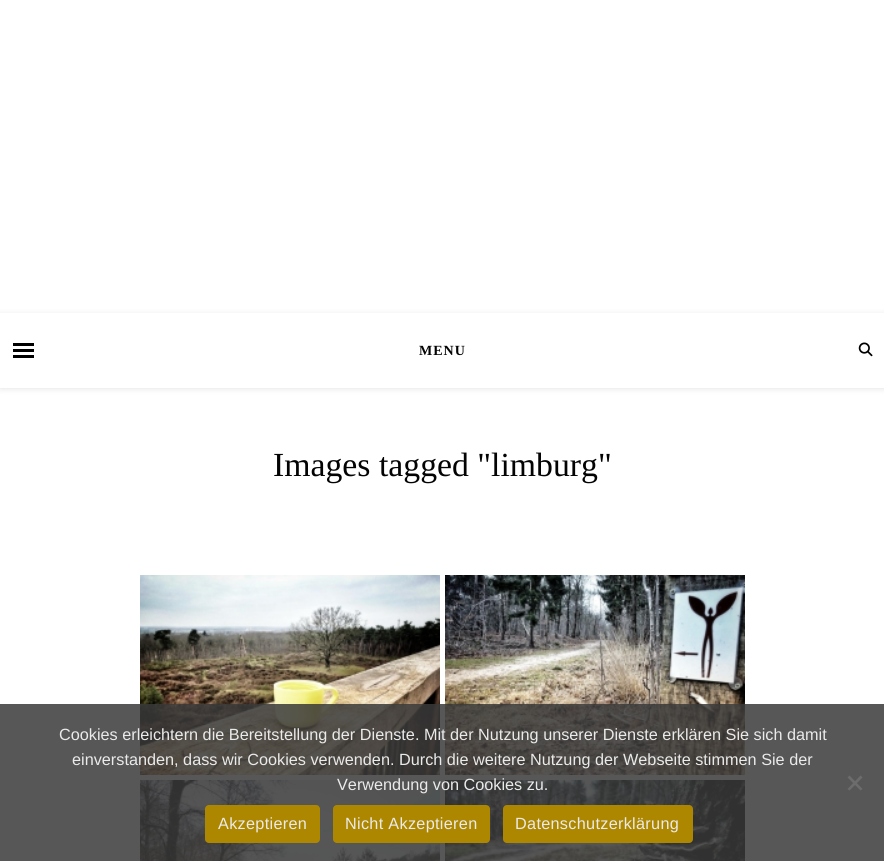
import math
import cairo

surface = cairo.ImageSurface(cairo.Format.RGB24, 884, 861)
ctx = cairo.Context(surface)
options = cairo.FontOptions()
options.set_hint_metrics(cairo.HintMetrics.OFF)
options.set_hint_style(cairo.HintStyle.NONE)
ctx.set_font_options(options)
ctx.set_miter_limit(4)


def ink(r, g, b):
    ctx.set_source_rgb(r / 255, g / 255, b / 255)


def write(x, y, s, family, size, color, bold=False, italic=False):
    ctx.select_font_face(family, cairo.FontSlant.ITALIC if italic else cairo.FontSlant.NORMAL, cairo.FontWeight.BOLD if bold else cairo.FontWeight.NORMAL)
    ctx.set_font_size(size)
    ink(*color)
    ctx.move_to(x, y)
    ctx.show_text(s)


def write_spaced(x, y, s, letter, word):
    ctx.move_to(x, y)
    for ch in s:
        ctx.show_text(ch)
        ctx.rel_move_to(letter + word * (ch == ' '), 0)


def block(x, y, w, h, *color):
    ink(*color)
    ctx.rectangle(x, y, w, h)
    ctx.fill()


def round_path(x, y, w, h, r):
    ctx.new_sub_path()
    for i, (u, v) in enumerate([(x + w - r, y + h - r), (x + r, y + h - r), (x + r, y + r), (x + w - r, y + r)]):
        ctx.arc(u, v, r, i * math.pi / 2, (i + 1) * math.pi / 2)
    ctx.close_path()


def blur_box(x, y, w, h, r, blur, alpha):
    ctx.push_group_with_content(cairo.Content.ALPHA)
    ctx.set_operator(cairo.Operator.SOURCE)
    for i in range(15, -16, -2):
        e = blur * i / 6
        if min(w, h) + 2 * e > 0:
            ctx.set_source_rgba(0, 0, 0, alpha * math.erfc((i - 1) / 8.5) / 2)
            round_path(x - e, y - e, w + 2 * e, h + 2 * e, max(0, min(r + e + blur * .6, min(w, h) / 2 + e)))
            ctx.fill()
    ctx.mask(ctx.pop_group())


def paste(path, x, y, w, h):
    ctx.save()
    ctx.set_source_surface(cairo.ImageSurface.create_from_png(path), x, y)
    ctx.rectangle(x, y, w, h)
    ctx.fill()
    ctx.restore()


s1 = dict(family="Liberation Serif", size=33.75, color=(3, 3, 3))
s2 = dict(family="Liberation Sans", size=16.25, color=(234, 234, 234))

ink(255, 255, 255)
ctx.paint()
ink(0, 0, 0)
blur_box(0, 314, 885, 75, 0, 3, 0.1)
block(0, 313, 884, 75, 255, 255, 255)
block(13, 343, 21, 3, 0, 0, 0)
block(13, 349, 21, 3, 0, 0, 0)
block(13, 355, 21, 3, 0, 0, 0)
ctx.select_font_face("Liberation Serif", cairo.FontSlant.NORMAL, cairo.FontWeight.BOLD)
ctx.set_font_size(14)
ink(3, 3, 3)
write_spaced(419, 355, "MENU", 1, 0)
paste("pic1.png", 858, 342, 15, 15)
write(273, 476, "Images tagged \"limburg\"", **s1)
paste("pic2.png", 140, 575, 300, 200)
paste("pic3.png", 445, 575, 300, 200)
paste("pic4.png", 140, 780, 300, 81)
paste("pic5.png", 445, 780, 300, 81)
ctx.set_source_rgba(0.227, 0.227, 0.227, 0.85)
ctx.rectangle(0, 704, 884, 157)
ctx.fill()
write(59, 740, "Cookies erleichtern die Bereitstellung der Dienste. Mit der Nutzung unserer Dienste erklären Sie sich damit", **s2)
write(72, 765, "einverstanden, dass wir Cookies verwenden. Durch die weitere Nutzung der Webseite stimmen Sie der", **s2)
write(337, 790, "Verwendung von Cookies zu.", **s2)
ink(108, 108, 108)
ctx.new_path()
ctx.move_to(860.5, 775.5)
ctx.line_to(862.5, 777.5)
ctx.line_to(849.5, 790.5)
ctx.line_to(847.5, 789)
ctx.close_path()
ctx.fill()
ctx.new_path()
ctx.move_to(847.5, 777.5)
ctx.line_to(849.5, 775.5)
ctx.line_to(862.5, 789)
ctx.line_to(860.5, 790.5)
ctx.close_path()
ctx.fill()
ink(173, 135, 0)
round_path(205, 805, 115, 38, 4)
ctx.fill()
ink(234, 234, 234)
write_spaced(218, 829, "Akzeptieren", 0.3, 0)
ink(173, 135, 0)
round_path(333, 805, 157, 38, 4)
ctx.fill()
ink(234, 234, 234)
write_spaced(345, 829, "Nicht Akzeptieren", 0.3, 0)
ink(173, 135, 0)
round_path(503, 805, 190, 38, 4)
ctx.fill()
ink(234, 234, 234)
write_spaced(515, 829, "Datenschutzerklärung", 0.3, 0)
surface.write_to_png("screenshot.png")
